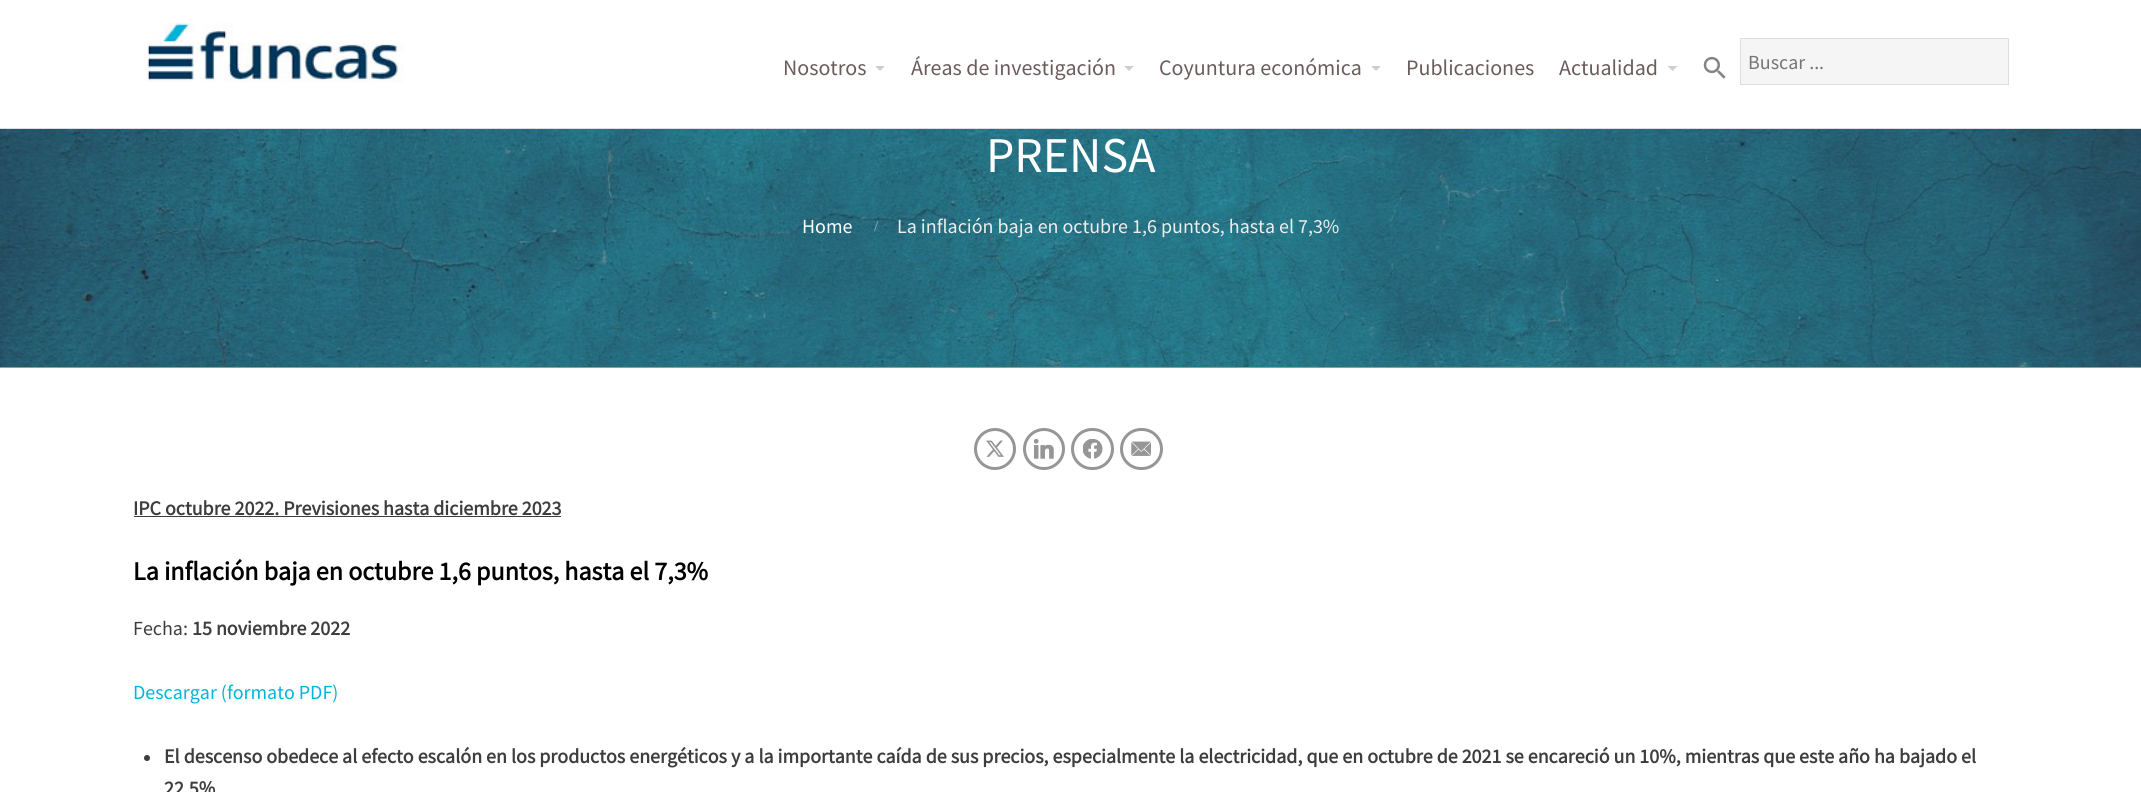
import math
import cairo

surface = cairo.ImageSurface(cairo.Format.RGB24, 2141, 792)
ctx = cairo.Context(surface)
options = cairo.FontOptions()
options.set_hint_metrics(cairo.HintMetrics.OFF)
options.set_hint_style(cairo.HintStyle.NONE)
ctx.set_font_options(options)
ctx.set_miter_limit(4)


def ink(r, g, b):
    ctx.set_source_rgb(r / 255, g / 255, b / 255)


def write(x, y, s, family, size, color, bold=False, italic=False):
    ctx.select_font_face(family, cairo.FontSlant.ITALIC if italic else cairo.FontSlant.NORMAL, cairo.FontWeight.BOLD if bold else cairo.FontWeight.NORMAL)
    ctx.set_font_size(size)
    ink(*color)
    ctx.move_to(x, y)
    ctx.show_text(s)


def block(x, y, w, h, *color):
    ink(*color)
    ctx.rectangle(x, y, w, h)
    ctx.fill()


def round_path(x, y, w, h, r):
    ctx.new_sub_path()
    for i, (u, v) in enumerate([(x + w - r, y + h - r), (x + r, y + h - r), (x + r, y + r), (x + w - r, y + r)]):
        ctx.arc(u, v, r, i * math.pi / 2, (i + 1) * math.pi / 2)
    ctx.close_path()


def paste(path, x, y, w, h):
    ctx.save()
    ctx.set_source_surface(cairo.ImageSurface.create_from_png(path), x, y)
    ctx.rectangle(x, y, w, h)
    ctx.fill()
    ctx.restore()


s1 = dict(family="Source Sans Pro", size=22, color=(107, 92, 92))
s2 = dict(family="Source Sans Pro", size=20, color=(117, 117, 117))
s3 = dict(family="Source Sans Pro", size=50, color=(255, 255, 255))
s4 = dict(family="Source Sans Pro", size=20, color=(255, 255, 255))
s5 = dict(family="Liberation Serif", size=15, color=(129, 163, 172), bold=True)
s6 = dict(family="Source Sans Pro", size=20, color=(238, 238, 238))
s7 = dict(family="Source Sans Pro", size=20, color=(61, 61, 61), bold=True)
s8 = dict(family="Source Sans Pro", size=26, color=(0, 0, 0), bold=True)
s9 = dict(family="Source Sans Pro", size=20, color=(61, 61, 61))
s10 = dict(family="Source Sans Pro", size=20, color=(0, 181, 221))

ink(255, 255, 255)
ctx.paint()
block(0, 128, 2141, 1, 221, 221, 221)
paste("pic1.png", 144, 22, 260, 61)
write(783, 75, "Nosotros", **s1)
ink(207, 207, 207)
ctx.new_path()
ctx.move_to(875, 66)
ctx.line_to(885, 66)
ctx.line_to(880, 71)
ctx.close_path()
ctx.fill()
write(911, 75, "Áreas de investigación", **s1)
ink(207, 207, 207)
ctx.new_path()
ctx.move_to(1124, 66)
ctx.line_to(1134, 66)
ctx.line_to(1129, 71)
ctx.close_path()
ctx.fill()
write(1159, 75, "Coyuntura económica", **s1)
ink(207, 207, 207)
ctx.new_path()
ctx.move_to(1371, 66)
ctx.line_to(1381, 66)
ctx.line_to(1376, 71)
ctx.close_path()
ctx.fill()
write(1406, 75, "Publicaciones", **s1)
write(1559, 75, "Actualidad", **s1)
ink(207, 207, 207)
ctx.new_path()
ctx.move_to(1667.5, 66)
ctx.line_to(1677.5, 66)
ctx.line_to(1672.5, 71)
ctx.close_path()
ctx.fill()
paste("pic2.png", 1703, 56, 23, 23)
ink(245, 245, 245)
ctx.rectangle(1740.5, 38.5, 268, 46)
ctx.fill_preserve()
ink(221, 221, 221)
ctx.set_line_width(1)
ctx.stroke()
write(1748, 69, "Buscar ...", **s2)
block(0, 367, 2141, 1, 154, 154, 154)
paste("pic3.png", 0, 129, 2141, 238)
write(986, 172, "PRENSA", **s3)
write(802, 233, "Home", **s4)
write(874, 231, "/", **s5)
write(897, 233, "La inflación baja en octubre 1,6 puntos, hasta el 7,3%", **s6)
ctx.new_path()
ctx.arc(995, 449, 19.5, 0, 2 * math.pi)
ink(150, 150, 150)
ctx.set_line_width(3)
ctx.stroke()
paste("pic4.png", 986, 440, 18, 17)
ctx.arc(1044, 449, 19.5, 0, 2 * math.pi)
ctx.stroke()
paste("pic5.png", 1034, 439, 20, 20)
round_path(1072.5, 429.5, 40, 39, 19.5)
ctx.stroke()
paste("pic6.png", 1083, 439, 20, 20)
round_path(1121.5, 429.5, 40, 39, 19.5)
ctx.stroke()
paste("pic7.png", 1131, 441, 20, 15)
write(133, 515, "IPC octubre 2022. Previsiones hasta diciembre 2023", **s7)
block(134, 516, 427, 1, 61, 61, 61)
write(133, 580, "La inflación baja en octubre 1,6 puntos, hasta el 7,3%", **s8)
write(133, 635, "Fecha:", **s9)
write(192, 635, "15 noviembre 2022", **s7)
write(133, 699, "Descargar (formato PDF)", **s10)
ink(61, 61, 61)
ctx.new_path()
ctx.arc(147, 758, 3, 0, 2 * math.pi)
ctx.fill()
write(164, 763, "El descenso obedece al efecto escalón en los productos energéticos y a la importante caída de sus precios, especialmente la electricidad, que en octubre de 2021 se encareció un 10%, mientras que este año ha bajado el", **s7)
write(164, 795, "22,5%", **s7)
surface.write_to_png("screenshot.png")
